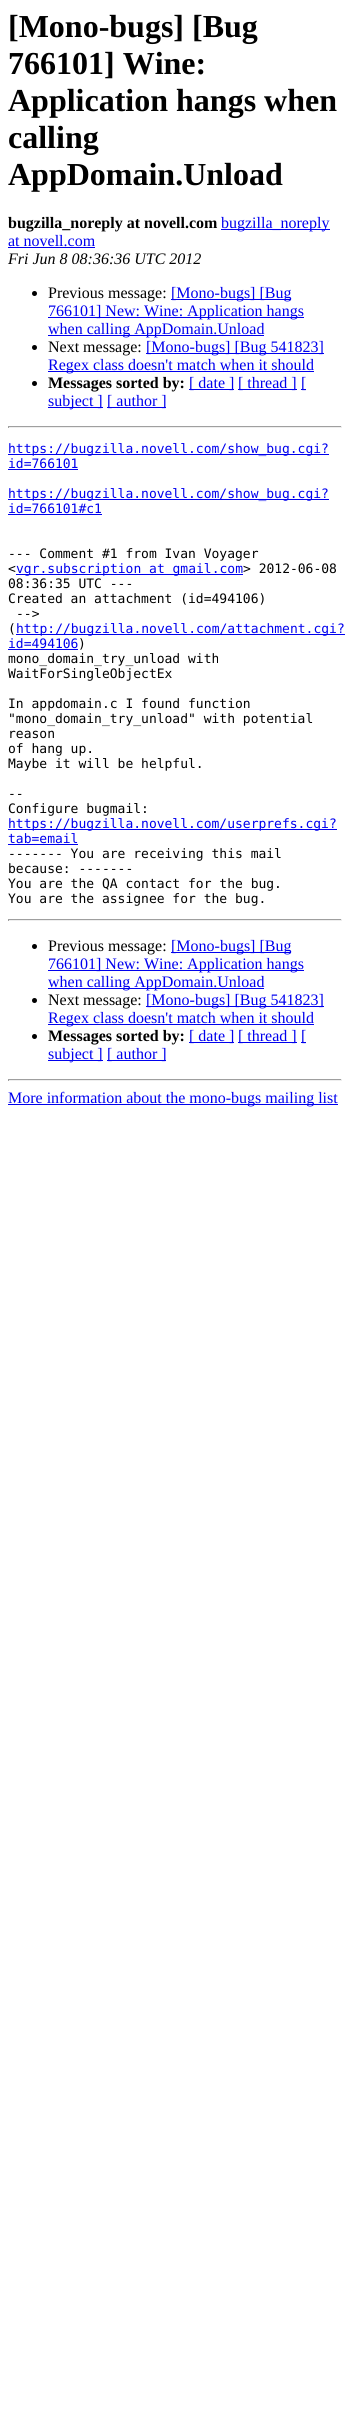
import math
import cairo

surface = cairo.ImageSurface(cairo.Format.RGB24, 350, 2416)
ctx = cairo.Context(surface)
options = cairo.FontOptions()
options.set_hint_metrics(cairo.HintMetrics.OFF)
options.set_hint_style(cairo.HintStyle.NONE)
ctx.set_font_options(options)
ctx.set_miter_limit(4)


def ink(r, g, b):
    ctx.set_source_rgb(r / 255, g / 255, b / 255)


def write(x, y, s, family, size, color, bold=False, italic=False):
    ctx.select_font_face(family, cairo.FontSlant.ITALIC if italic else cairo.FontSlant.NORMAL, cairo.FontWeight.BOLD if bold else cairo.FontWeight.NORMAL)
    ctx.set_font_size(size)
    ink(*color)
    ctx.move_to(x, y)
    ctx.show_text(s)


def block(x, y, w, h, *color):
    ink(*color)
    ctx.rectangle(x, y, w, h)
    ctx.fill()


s1 = dict(family="Liberation Serif", size=32, color=(0, 0, 0), bold=True)
s2 = dict(family="Liberation Serif", size=16, color=(0, 0, 0), bold=True)
s3 = dict(family="Liberation Serif", size=16, color=(0, 0, 238))
s4 = dict(family="Liberation Serif", size=16, color=(0, 0, 0), italic=True)
s5 = dict(family="Liberation Serif", size=16, color=(0, 0, 0))
s6 = dict(family="DejaVu Sans Mono", size=13, color=(0, 0, 238))
s7 = dict(family="DejaVu Sans Mono", size=13, color=(0, 0, 0))

ink(255, 255, 255)
ctx.paint()
write(8, 37, "[Mono-bugs] [Bug", **s1)
write(8, 74, "766101] Wine:", **s1)
write(8, 111, "Application hangs when", **s1)
write(8, 148, "calling", **s1)
write(8, 185, "AppDomain.Unload", **s1)
write(8, 228, "bugzilla_noreply at novell.com", **s2)
block(221, 229, 109, 1, 0, 0, 238)
write(221, 228, "bugzilla_noreply", **s3)
write(8, 246, "at novell.com", **s3)
block(8, 247, 87, 1, 0, 0, 238)
write(8, 264, "Fri Jun 8 08:36:36 UTC 2012", **s4)
ctx.new_path()
ctx.arc(34.5, 293.5, 2.5, 0, 2 * math.pi)
ctx.fill()
write(48, 298, "Previous message:", **s5)
block(171, 299, 120, 1, 0, 0, 238)
write(171, 298, "[Mono-bugs] [Bug", **s3)
block(48, 317, 256, 1, 0, 0, 238)
write(48, 316, "766101] New: Wine: Application hangs", **s3)
block(48, 335, 216, 1, 0, 0, 238)
write(48, 334, "when calling AppDomain.Unload", **s3)
ink(0, 0, 0)
ctx.new_path()
ctx.arc(34.5, 347.5, 2.5, 0, 2 * math.pi)
ctx.fill()
write(48, 352, "Next message:", **s5)
block(146, 353, 178, 1, 0, 0, 238)
write(146, 352, "[Mono-bugs] [Bug 541823]", **s3)
block(48, 371, 266, 1, 0, 0, 238)
write(48, 370, "Regex class doesn't match when it should", **s3)
ink(0, 0, 0)
ctx.new_path()
ctx.arc(34.5, 383.5, 2.5, 0, 2 * math.pi)
ctx.fill()
write(48, 388, "Messages sorted by:", **s2)
block(189, 389, 45, 1, 0, 0, 238)
write(189, 388, "[ date ]", **s3)
block(238, 389, 59, 1, 0, 0, 238)
write(238, 388, "[ thread ]", **s3)
block(301, 389, 5, 1, 0, 0, 238)
write(301, 388, "[", **s3)
block(48, 407, 55, 1, 0, 0, 238)
write(48, 406, "subject ]", **s3)
block(107, 407, 59, 1, 0, 0, 238)
write(107, 406, "[ author ]", **s3)
block(8, 426, 334, 1, 159, 159, 159)
block(341, 426, 1, 2, 238, 238, 238)
block(8, 427, 334, 1, 238, 238, 238)
block(8, 426, 1, 2, 159, 159, 159)
block(8, 454, 321, 1, 0, 0, 238)
write(8, 453, "https://bugzilla.novell.com/show_bug.cgi?", **s6)
write(8, 468, "id=766101", **s6)
block(8, 469, 70, 1, 0, 0, 238)
block(8, 499, 321, 1, 0, 0, 238)
write(8, 498, "https://bugzilla.novell.com/show_bug.cgi?", **s6)
write(8, 513, "id=766101#c1", **s6)
block(8, 514, 94, 1, 0, 0, 238)
write(8, 558, "--- Comment #1 from Ivan Voyager", **s7)
write(8, 573, "<", **s7)
block(16, 574, 227, 1, 0, 0, 238)
write(16, 573, "vgr.subscription at gmail.com", **s6)
write(243, 573, "> 2012-06-08", **s7)
write(8, 588, "08:36:35 UTC ---", **s7)
write(8, 603, "Created an attachment (id=494106)", **s7)
write(16, 618, "-->", **s7)
write(8, 633, "(", **s7)
block(16, 634, 329, 1, 0, 0, 238)
write(16, 633, "http://bugzilla.novell.com/attachment.cgi?", **s6)
write(8, 648, "id=494106", **s6)
block(8, 649, 70, 1, 0, 0, 238)
write(78, 648, ")", **s7)
write(8, 663, "mono_domain_try_unload with", **s7)
write(8, 678, "WaitForSingleObjectEx", **s7)
write(8, 708, "In appdomain.c I found function", **s7)
write(8, 723, "\"mono_domain_try_unload\" with potential", **s7)
write(8, 738, "reason", **s7)
write(8, 753, "of hang up.", **s7)
write(8, 768, "Maybe it will be helpful.", **s7)
write(8, 798, "--", **s7)
write(8, 813, "Configure bugmail:", **s7)
block(8, 829, 329, 1, 0, 0, 238)
write(8, 828, "https://bugzilla.novell.com/userprefs.cgi?", **s6)
write(8, 843, "tab=email", **s6)
block(8, 844, 70, 1, 0, 0, 238)
write(8, 858, "------- You are receiving this mail", **s7)
write(8, 873, "because: -------", **s7)
write(8, 888, "You are the QA contact for the bug.", **s7)
write(8, 903, "You are the assignee for the bug.", **s7)
block(8, 919, 334, 1, 159, 159, 159)
block(341, 919, 1, 2, 238, 238, 238)
block(8, 920, 334, 1, 238, 238, 238)
block(8, 919, 1, 2, 159, 159, 159)
ink(0, 0, 0)
ctx.new_path()
ctx.arc(34.5, 946.5, 2.5, 0, 2 * math.pi)
ctx.fill()
write(48, 951, "Previous message:", **s5)
block(171, 952, 120, 1, 0, 0, 238)
write(171, 951, "[Mono-bugs] [Bug", **s3)
block(48, 970, 256, 1, 0, 0, 238)
write(48, 969, "766101] New: Wine: Application hangs", **s3)
block(48, 988, 216, 1, 0, 0, 238)
write(48, 987, "when calling AppDomain.Unload", **s3)
ink(0, 0, 0)
ctx.new_path()
ctx.arc(34.5, 1000.5, 2.5, 0, 2 * math.pi)
ctx.fill()
write(48, 1005, "Next message:", **s5)
block(146, 1006, 178, 1, 0, 0, 238)
write(146, 1005, "[Mono-bugs] [Bug 541823]", **s3)
block(48, 1024, 266, 1, 0, 0, 238)
write(48, 1023, "Regex class doesn't match when it should", **s3)
ink(0, 0, 0)
ctx.new_path()
ctx.arc(34.5, 1036.5, 2.5, 0, 2 * math.pi)
ctx.fill()
write(48, 1041, "Messages sorted by:", **s2)
block(189, 1042, 45, 1, 0, 0, 238)
write(189, 1041, "[ date ]", **s3)
block(238, 1042, 59, 1, 0, 0, 238)
write(238, 1041, "[ thread ]", **s3)
block(301, 1042, 5, 1, 0, 0, 238)
write(301, 1041, "[", **s3)
block(48, 1060, 55, 1, 0, 0, 238)
write(48, 1059, "subject ]", **s3)
block(107, 1060, 59, 1, 0, 0, 238)
write(107, 1059, "[ author ]", **s3)
block(8, 1079, 334, 1, 159, 159, 159)
block(341, 1079, 1, 2, 238, 238, 238)
block(8, 1080, 334, 1, 238, 238, 238)
block(8, 1079, 1, 2, 159, 159, 159)
block(8, 1104, 330, 1, 0, 0, 238)
write(8, 1103, "More information about the mono-bugs mailing list", **s3)
surface.write_to_png("screenshot.png")
